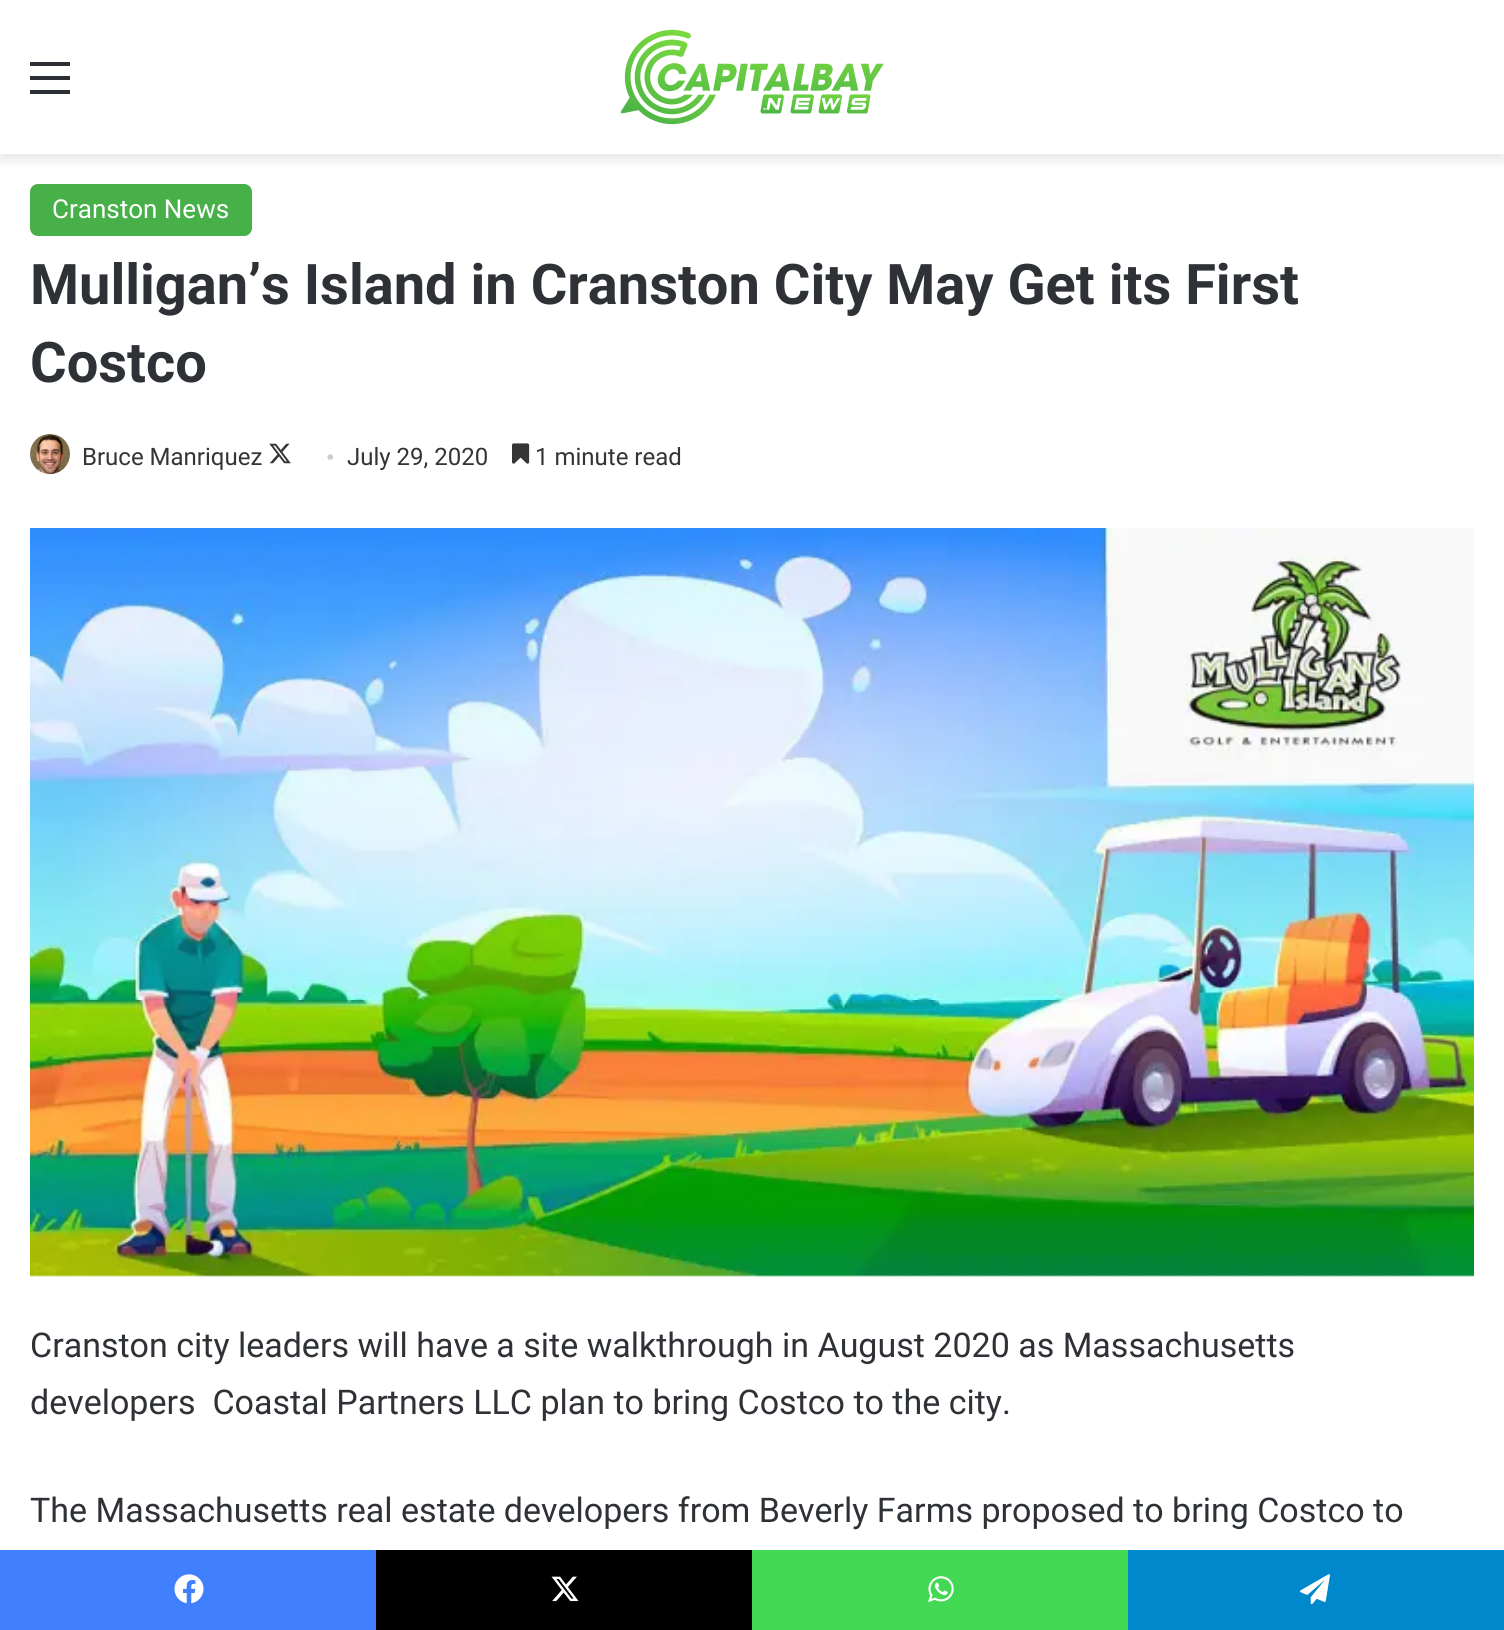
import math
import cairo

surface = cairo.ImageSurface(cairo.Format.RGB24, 1504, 1630)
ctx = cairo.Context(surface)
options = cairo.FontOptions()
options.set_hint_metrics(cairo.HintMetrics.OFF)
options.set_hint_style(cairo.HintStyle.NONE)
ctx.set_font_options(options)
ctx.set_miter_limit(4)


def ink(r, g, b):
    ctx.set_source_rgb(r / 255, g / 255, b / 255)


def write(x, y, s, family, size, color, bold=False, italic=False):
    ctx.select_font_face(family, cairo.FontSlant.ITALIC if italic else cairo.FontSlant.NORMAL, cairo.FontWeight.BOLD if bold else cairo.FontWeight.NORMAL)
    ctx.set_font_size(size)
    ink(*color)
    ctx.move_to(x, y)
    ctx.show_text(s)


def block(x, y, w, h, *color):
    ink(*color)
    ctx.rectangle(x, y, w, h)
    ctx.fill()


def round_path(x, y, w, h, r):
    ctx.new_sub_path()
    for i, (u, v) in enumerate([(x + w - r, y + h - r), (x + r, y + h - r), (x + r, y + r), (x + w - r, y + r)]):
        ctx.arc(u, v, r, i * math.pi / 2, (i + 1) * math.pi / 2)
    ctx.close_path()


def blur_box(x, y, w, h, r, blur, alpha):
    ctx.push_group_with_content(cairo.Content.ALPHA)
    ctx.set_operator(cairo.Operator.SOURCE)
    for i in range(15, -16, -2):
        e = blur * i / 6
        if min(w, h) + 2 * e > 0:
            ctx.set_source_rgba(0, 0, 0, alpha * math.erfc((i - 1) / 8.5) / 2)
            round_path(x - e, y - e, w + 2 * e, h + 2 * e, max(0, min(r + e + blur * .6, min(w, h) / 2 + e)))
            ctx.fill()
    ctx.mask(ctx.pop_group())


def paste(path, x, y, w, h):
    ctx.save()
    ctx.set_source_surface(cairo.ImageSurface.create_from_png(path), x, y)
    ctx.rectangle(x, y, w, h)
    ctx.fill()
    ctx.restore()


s1 = dict(family="Roboto", size=26, color=(255, 255, 255))
s2 = dict(family="Roboto", size=56, color=(46, 49, 54), bold=True)
s3 = dict(family="Roboto", size=24, color=(53, 53, 53))
s4 = dict(family="Liberation Serif", size=24, color=(205, 205, 205))
s5 = dict(family="Roboto", size=34, color=(46, 49, 54))

ink(255, 255, 255)
ctx.paint()
ctx.save()
ctx.rectangle(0, 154, 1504, 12)
ctx.clip()
ink(0, 0, 0)
blur_box(0, 6, 1504, 154, 0, 7, 0.1)
ctx.restore()
block(30, 76, 40, 4, 44, 47, 52)
block(30, 62, 40, 4, 44, 47, 52)
block(30, 90, 40, 4, 44, 47, 52)
paste("pic1.png", 620, 29, 264, 96)
ink(71, 176, 73)
round_path(30, 184, 222, 52, 8)
ctx.fill()
write(52, 218, "Cranston News", **s1)
write(30, 304, "Mulligan’s Island in Cranston City May Get its First", **s2)
write(30, 382, "Costco", **s2)
paste("pic2.png", 30, 434, 40, 40)
write(82, 465, "Bruce Manriquez", **s3)
paste("pic3.png", 269, 443, 22, 21)
write(326, 465, "•", **s4)
write(347, 465, "July 29, 2020", **s3)
paste("pic4.png", 512, 443, 18, 21)
write(535, 465, "1 minute read", **s3)
paste("pic5.png", 30, 528, 1444, 750)
write(30, 1357, "Cranston city leaders will have a site walkthrough in August 2020 as Massachusetts", **s5)
write(30, 1414, "developers  Coastal Partners LLC plan to bring Costco to the city.", **s5)
write(30, 1522, "The Massachusetts real estate developers from Beverly Farms proposed to bring Costco to", **s5)
block(0, 1550, 376, 80, 64, 128, 255)
paste("pic6.png", 174, 1574, 30, 30)
block(376, 1550, 376, 80, 0, 0, 0)
paste("pic7.png", 551, 1576, 28, 26)
block(752, 1550, 376, 80, 67, 216, 84)
paste("pic8.png", 928, 1576, 26, 26)
block(1128, 1550, 376, 80, 0, 136, 204)
paste("pic9.png", 1300, 1574, 30, 31)
surface.write_to_png("screenshot.png")
